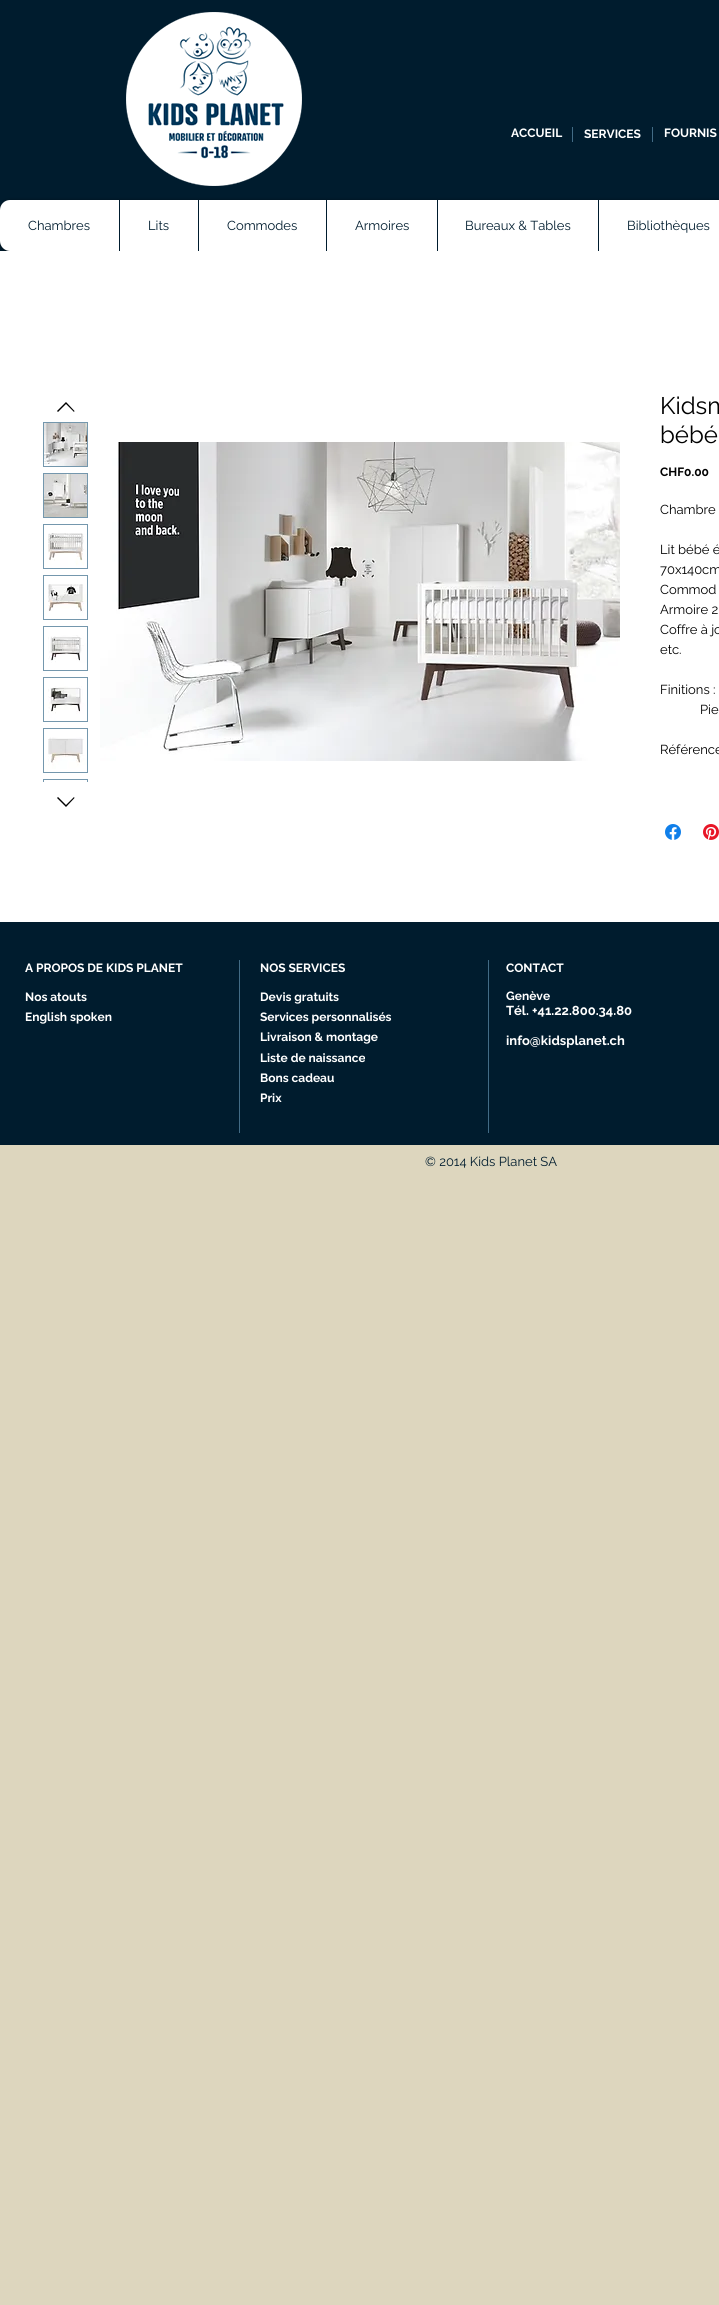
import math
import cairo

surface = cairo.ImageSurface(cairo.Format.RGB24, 719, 2305)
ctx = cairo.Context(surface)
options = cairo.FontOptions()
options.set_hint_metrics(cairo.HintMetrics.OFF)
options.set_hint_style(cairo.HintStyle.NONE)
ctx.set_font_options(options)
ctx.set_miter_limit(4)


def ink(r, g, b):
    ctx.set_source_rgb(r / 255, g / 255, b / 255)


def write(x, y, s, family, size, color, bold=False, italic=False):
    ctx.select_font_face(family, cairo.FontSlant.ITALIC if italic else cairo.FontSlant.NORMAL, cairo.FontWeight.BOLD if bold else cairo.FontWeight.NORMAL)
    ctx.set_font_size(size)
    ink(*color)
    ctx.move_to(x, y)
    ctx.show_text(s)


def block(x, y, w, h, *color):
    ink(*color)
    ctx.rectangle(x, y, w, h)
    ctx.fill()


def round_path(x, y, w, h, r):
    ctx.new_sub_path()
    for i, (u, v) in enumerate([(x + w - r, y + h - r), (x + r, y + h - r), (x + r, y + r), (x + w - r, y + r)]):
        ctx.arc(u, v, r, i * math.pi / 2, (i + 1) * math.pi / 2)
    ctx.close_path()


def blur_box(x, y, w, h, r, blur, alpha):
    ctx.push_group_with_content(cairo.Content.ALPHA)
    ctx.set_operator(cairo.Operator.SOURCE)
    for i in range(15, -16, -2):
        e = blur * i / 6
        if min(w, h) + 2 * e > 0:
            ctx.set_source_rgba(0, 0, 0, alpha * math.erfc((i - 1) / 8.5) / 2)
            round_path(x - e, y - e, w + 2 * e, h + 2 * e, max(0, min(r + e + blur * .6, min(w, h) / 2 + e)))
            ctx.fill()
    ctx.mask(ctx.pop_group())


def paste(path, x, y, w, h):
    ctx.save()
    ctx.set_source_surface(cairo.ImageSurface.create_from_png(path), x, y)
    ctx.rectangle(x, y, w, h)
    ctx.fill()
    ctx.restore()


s1 = dict(family="Raleway", size=12, color=(255, 255, 255), bold=True)
s2 = dict(family="Raleway", size=13, color=(0, 28, 46))
s3 = dict(family="Raleway", size=24, color=(0, 0, 0))
s4 = dict(family="Raleway", size=12, color=(0, 0, 0), bold=True)
s5 = dict(family="Raleway", size=13, color=(0, 0, 0))
s6 = dict(family="Raleway", size=13, color=(255, 255, 255), bold=True)

ink(221, 214, 190)
ctx.paint()
block(0, 0, 719, 251, 0, 28, 46)
paste("pic1.png", 126, 12, 176, 174)
write(511, 137, "ACCUEIL", **s1)
block(572, 127, 1, 15, 66, 107, 133)
write(584, 138, "SERVICES", **s1)
block(652, 127, 1, 15, 66, 107, 133)
write(664, 137, "FOURNIS", **s1)
ink(0, 0, 0)
blur_box(0, 201, 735, 51, 10, 2, 0.6)
ink(255, 255, 255)
round_path(0, 200, 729, 51, 10)
ctx.fill()
write(28, 230, "Chambres", **s2)
block(119, 200, 1, 51, 0, 28, 46)
write(148, 230, "Lits", **s2)
block(198, 200, 1, 51, 0, 28, 46)
write(227, 230, "Commodes", **s2)
block(326, 200, 1, 51, 0, 28, 46)
write(355, 230, "Armoires", **s2)
block(437, 200, 1, 51, 0, 28, 46)
write(465, 230, "Bureaux & Tables", **s2)
block(598, 200, 1, 51, 0, 28, 46)
write(627, 230, "Bibliothèques", **s2)
block(0, 251, 719, 671, 255, 255, 255)
ink(0, 0, 0)
ctx.set_fill_rule(cairo.FillRule.EVEN_ODD)
ctx.new_path()
ctx.move_to(66, 402)
ctx.line_to(74.5, 411)
ctx.line_to(74, 412)
ctx.line_to(66, 404)
ctx.line_to(58, 412)
ctx.line_to(57, 411)
ctx.close_path()
ctx.fill()
block(43, 422, 45, 45, 116, 151, 173)
paste("pic2.png", 44, 423, 43, 43)
block(43, 473, 45, 45, 116, 151, 173)
paste("pic3.png", 44, 474, 43, 43)
block(43, 524, 45, 45, 116, 151, 173)
paste("pic4.png", 44, 525, 43, 43)
block(43, 575, 45, 45, 116, 151, 173)
paste("pic5.png", 44, 576, 43, 43)
block(43, 626, 45, 45, 116, 151, 173)
paste("pic6.png", 44, 627, 43, 43)
block(43, 677, 45, 45, 116, 151, 173)
paste("pic7.png", 44, 678, 43, 43)
block(43, 728, 45, 45, 116, 151, 173)
paste("pic8.png", 44, 729, 43, 43)
block(43, 779, 45, 3, 116, 151, 173)
block(44, 780, 43, 2, 255, 255, 255)
ink(0, 0, 0)
ctx.new_path()
ctx.move_to(74, 797)
ctx.line_to(74.5, 798)
ctx.line_to(66, 807)
ctx.line_to(57, 798)
ctx.line_to(58, 797)
ctx.line_to(66, 805)
ctx.close_path()
ctx.fill()
paste("pic9.png", 100, 442, 520, 319)
write(660, 414, "Kidsm", **s3)
write(660, 443, "bébé", **s3)
write(660, 476, "CHF0.00", **s4)
write(660, 514, "Chambre", **s5)
write(660, 554, "Lit bébé é", **s5)
write(660, 574, "70x140cm", **s5)
write(660, 594, "Commod", **s5)
write(660, 614, "Armoire 2", **s5)
write(660, 634, "Coffre à jo", **s5)
write(660, 654, "etc.", **s5)
write(660, 694, "Finitions :", **s5)
write(700, 714, "Pie", **s5)
write(660, 754, "Référence", **s5)
paste("pic10.png", 665, 824, 16, 16)
paste("pic11.png", 703, 824, 16, 16)
block(0, 922, 719, 223, 0, 28, 46)
write(25, 972, "A PROPOS DE KIDS PLANET", **s1)
block(239, 960, 1, 173, 66, 107, 133)
write(260, 972, "NOS SERVICES", **s1)
block(488, 960, 1, 173, 66, 107, 133)
write(506, 972, "CONTACT", **s1)
write(25, 1001, "Nos atouts", **s1)
write(260, 1001, "Devis gratuits", **s1)
write(506, 1000, "Genève", **s1)
write(506, 1015, "Tél. +41.22.800.34.80", **s6)
write(506, 1045, "info@kidsplanet.ch", **s6)
write(25, 1021, "English spoken", **s1)
write(260, 1021, "Services personnalisés", **s1)
write(260, 1041, "Livraison & montage", **s1)
write(260, 1062, "Liste de naissance", **s1)
write(260, 1082, "Bons cadeau", **s1)
write(260, 1102, "Prix", **s1)
write(425, 1166, "© 2014 Kids Planet SA", **s2)
surface.write_to_png("screenshot.png")
